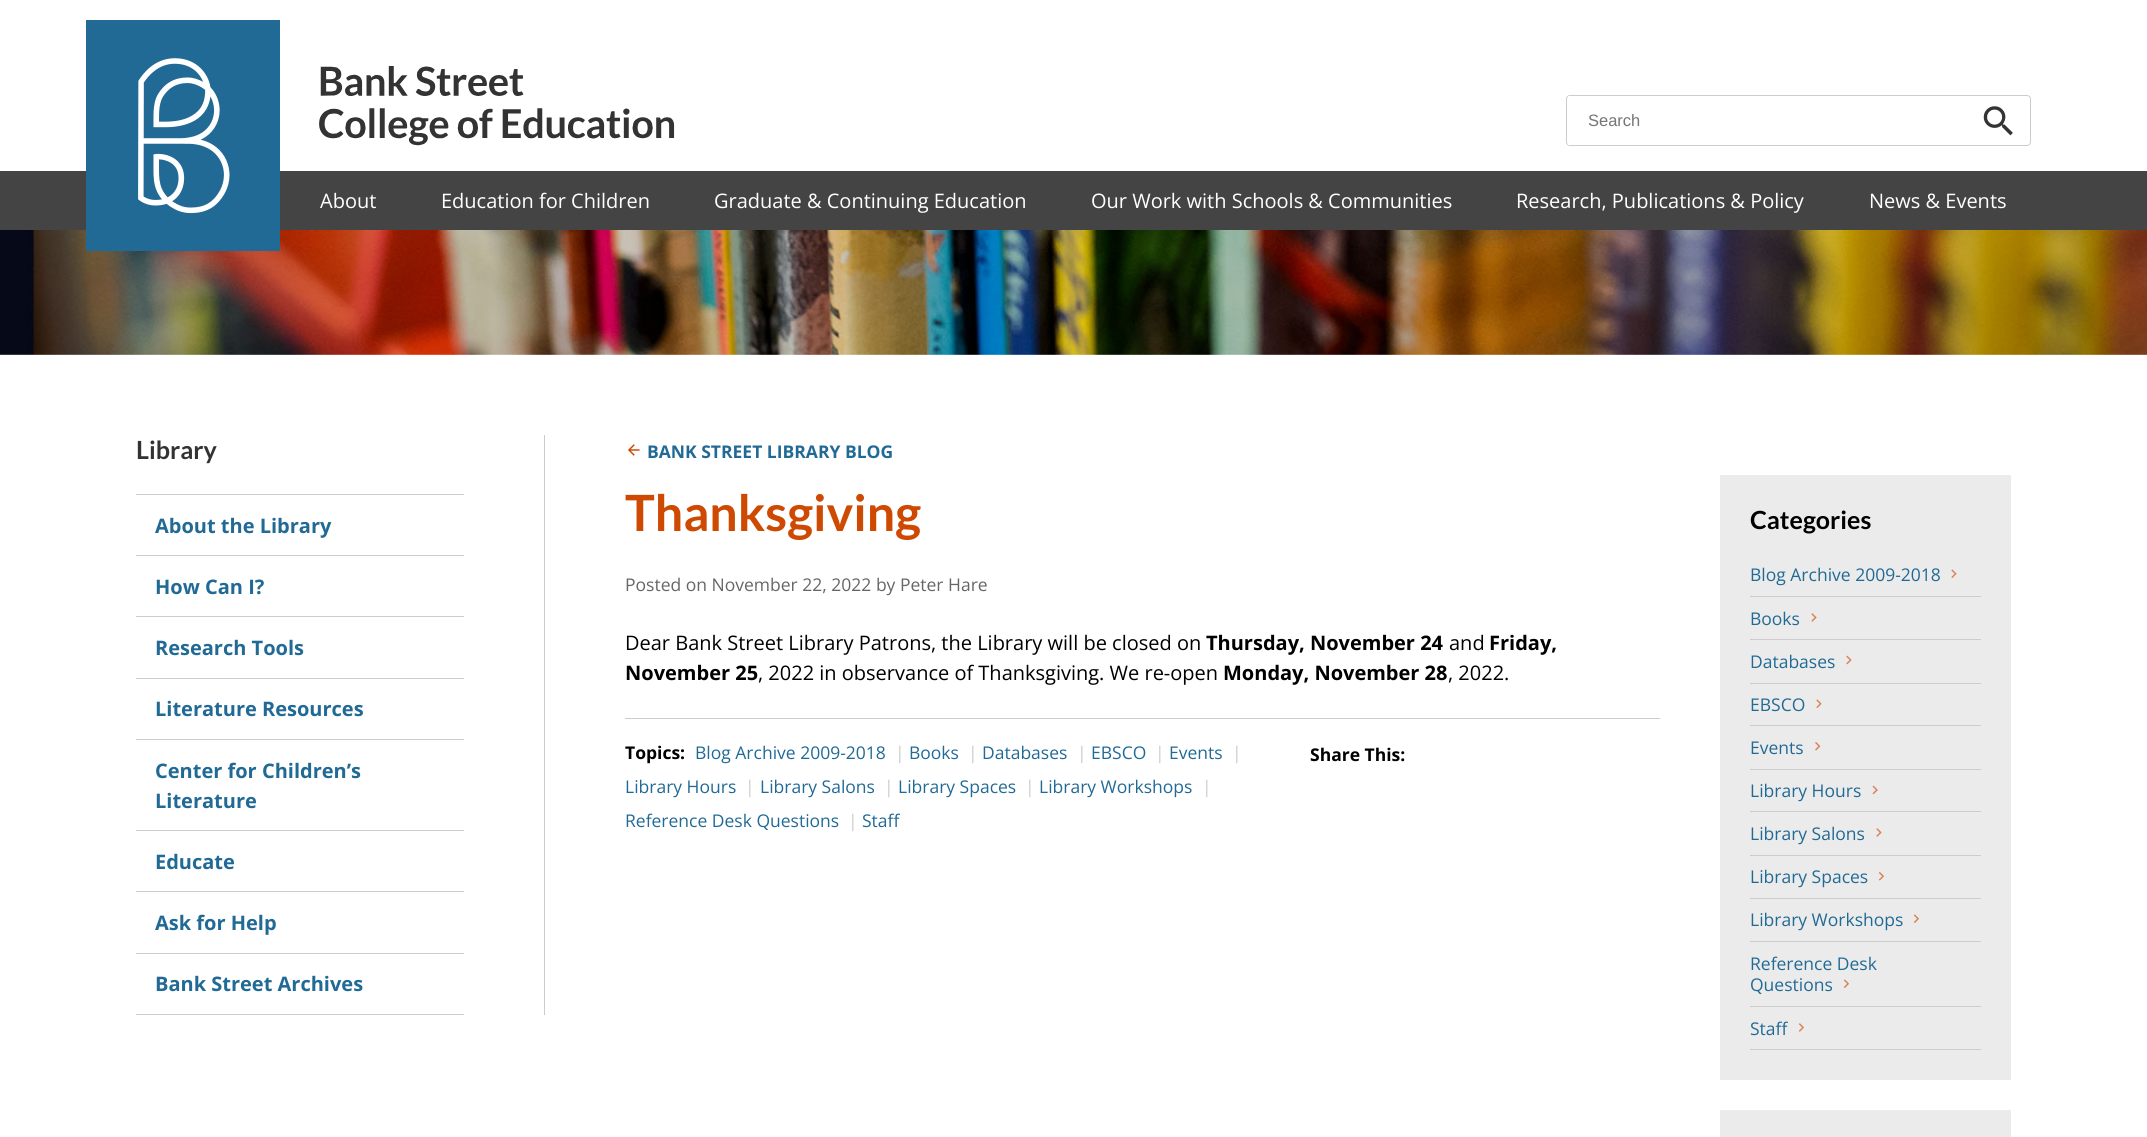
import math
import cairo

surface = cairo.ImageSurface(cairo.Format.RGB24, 2147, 1137)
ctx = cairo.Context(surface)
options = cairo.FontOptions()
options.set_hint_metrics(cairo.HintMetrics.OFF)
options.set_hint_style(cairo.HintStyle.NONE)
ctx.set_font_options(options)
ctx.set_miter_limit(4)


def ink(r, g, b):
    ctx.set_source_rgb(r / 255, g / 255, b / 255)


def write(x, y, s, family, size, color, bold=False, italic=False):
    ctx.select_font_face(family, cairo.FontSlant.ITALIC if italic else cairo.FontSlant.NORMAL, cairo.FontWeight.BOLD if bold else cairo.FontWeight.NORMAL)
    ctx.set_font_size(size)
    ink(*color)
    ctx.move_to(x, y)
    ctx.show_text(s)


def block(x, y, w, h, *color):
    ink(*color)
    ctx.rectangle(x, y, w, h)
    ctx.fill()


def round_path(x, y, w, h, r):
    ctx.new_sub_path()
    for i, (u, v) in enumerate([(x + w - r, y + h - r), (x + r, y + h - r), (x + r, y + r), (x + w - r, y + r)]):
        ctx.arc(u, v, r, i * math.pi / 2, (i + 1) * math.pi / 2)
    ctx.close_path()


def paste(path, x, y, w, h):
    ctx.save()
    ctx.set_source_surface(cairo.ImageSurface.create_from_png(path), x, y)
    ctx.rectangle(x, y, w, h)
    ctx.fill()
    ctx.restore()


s1 = dict(family="Liberation Sans", size=16.5, color=(117, 117, 117))
s2 = dict(family="Open Sans", size=20, color=(255, 255, 255))
s3 = dict(family="Lato", size=25, color=(51, 51, 51), bold=True)
s4 = dict(family="Open Sans", size=20, color=(33, 106, 149), bold=True)
s5 = dict(family="Open Sans", size=17.5, color=(33, 106, 149), bold=True)
s6 = dict(family="Lato", size=50, color=(206, 74, 3), bold=True)
s7 = dict(family="Open Sans", size=17.5, color=(102, 102, 102))
s8 = dict(family="Open Sans", size=20, color=(0, 0, 0))
s9 = dict(family="Open Sans", size=20, color=(0, 0, 0), bold=True)
s10 = dict(family="Open Sans", size=17.5, color=(0, 0, 0), bold=True)
s11 = dict(family="Open Sans", size=17.5, color=(33, 106, 149))
s12 = dict(family="Open Sans", size=17.5, color=(204, 204, 204))
s13 = dict(family="Lato", size=25, color=(0, 0, 0), bold=True)

ink(255, 255, 255)
ctx.paint()
block(0, 171, 2147, 59, 68, 68, 68)
paste("pic4.png", 0, 230, 2147, 125)
block(86, 20, 194, 231, 33, 106, 149)
paste("pic1.png", 138, 58, 92, 156)
paste("pic2.png", 319, 66, 356, 80)
round_path(1566.5, 95.5, 464, 50, 3.5)
ink(204, 204, 204)
ctx.set_line_width(1)
ctx.stroke()
block(1568, 96, 2, 49, 255, 255, 255)
write(1588, 126, "Search", **s1)
paste("pic3.png", 1983, 106, 30, 30)
write(320, 208, "About", **s2)
write(441, 208, "Education for Children", **s2)
write(714, 208, "Graduate & Continuing Education", **s2)
write(1091, 208, "Our Work with Schools & Communities", **s2)
write(1516, 208, "Research, Publications & Policy", **s2)
write(1869, 208, "News & Events", **s2)
block(544, 435, 1, 580, 204, 204, 204)
write(136, 459, "Library", **s3)
block(136, 494, 328, 1, 204, 204, 204)
block(136, 555, 328, 1, 204, 204, 204)
write(155, 533, "About the Library", **s4)
block(136, 616, 328, 1, 204, 204, 204)
write(155, 594, "How Can I?", **s4)
block(136, 678, 328, 1, 204, 204, 204)
write(155, 655, "Research Tools", **s4)
block(136, 739, 328, 1, 204, 204, 204)
write(155, 716, "Literature Resources", **s4)
block(136, 830, 328, 1, 204, 204, 204)
write(155, 778, "Center for Children’s", **s4)
write(155, 808, "Literature", **s4)
block(136, 891, 328, 1, 204, 204, 204)
write(155, 869, "Educate", **s4)
block(136, 953, 328, 1, 204, 204, 204)
write(155, 930, "Ask for Help", **s4)
block(136, 1014, 328, 1, 204, 204, 204)
write(155, 991, "Bank Street Archives", **s4)
paste("pic5.png", 628, 444, 12, 12)
write(647, 458, "BANK STREET LIBRARY BLOG", **s5)
write(625, 531, "Thanksgiving", **s6)
write(625, 591, "Posted on November 22, 2022 by Peter Hare", **s7)
write(625, 650, "Dear Bank Street Library Patrons, the Library will be closed on", **s8)
write(1206, 650, "Thursday, November 24", **s9)
write(1449, 650, "and", **s8)
write(1489, 650, "Friday,", **s9)
write(625, 680, "November 25", **s9)
write(758, 680, ", 2022 in observance of Thanksgiving. We re-open", **s8)
write(1223, 680, "Monday, November 28", **s9)
write(1448, 680, ", 2022.", **s8)
block(625, 718, 1035, 1, 204, 204, 204)
write(625, 759, "Topics:", **s10)
write(695, 759, "Blog Archive 2009-2018", **s11)
write(895, 759, "|", **s12)
write(909, 759, "Books", **s11)
write(968, 759, "|", **s12)
write(982, 759, "Databases", **s11)
write(1077, 759, "|", **s12)
write(1091, 759, "EBSCO", **s11)
write(1155, 759, "|", **s12)
write(1169, 759, "Events", **s11)
write(1232, 759, "|", **s12)
write(625, 793, "Library Hours", **s11)
write(745, 793, "|", **s12)
write(760, 793, "Library Salons", **s11)
write(884, 793, "|", **s12)
write(898, 793, "Library Spaces", **s11)
write(1025, 793, "|", **s12)
write(1039, 793, "Library Workshops", **s11)
write(1202, 793, "|", **s12)
write(625, 827, "Reference Desk Questions", **s11)
write(848, 827, "|", **s12)
write(862, 827, "Staff", **s11)
write(1310, 761, "Share This:", **s10)
block(1720, 475, 291, 605, 235, 235, 235)
write(1750, 529, "Categories", **s13)
block(1750, 596, 231, 1, 204, 204, 204)
write(1750, 581, "Blog Archive 2009-2018", **s11)
paste("pic6.png", 1951, 569, 6, 9)
block(1750, 639, 231, 1, 204, 204, 204)
write(1750, 625, "Books", **s11)
paste("pic7.png", 1811, 613, 6, 9)
block(1750, 683, 231, 1, 204, 204, 204)
write(1750, 668, "Databases", **s11)
paste("pic8.png", 1846, 655, 6, 10)
block(1750, 725, 231, 1, 204, 204, 204)
write(1750, 711, "EBSCO", **s11)
paste("pic6.png", 1816, 699, 6, 9)
block(1750, 769, 231, 1, 204, 204, 204)
write(1750, 754, "Events", **s11)
paste("pic9.png", 1815, 742, 6, 9)
block(1750, 811, 231, 1, 204, 204, 204)
write(1750, 797, "Library Hours", **s11)
paste("pic10.png", 1872, 785, 6, 10)
block(1750, 855, 231, 1, 204, 204, 204)
write(1750, 840, "Library Salons", **s11)
paste("pic7.png", 1876, 828, 6, 9)
block(1750, 898, 231, 1, 204, 204, 204)
write(1750, 883, "Library Spaces", **s11)
paste("pic11.png", 1878, 872, 6, 9)
block(1750, 941, 231, 1, 204, 204, 204)
write(1750, 926, "Library Workshops", **s11)
paste("pic12.png", 1913, 914, 6, 9)
block(1750, 1006, 231, 1, 204, 204, 204)
write(1750, 970, "Reference Desk", **s11)
write(1750, 991, "Questions", **s11)
paste("pic12.png", 1843, 979, 6, 9)
block(1750, 1049, 231, 1, 204, 204, 204)
write(1750, 1035, "Staff", **s11)
paste("pic13.png", 1798, 1023, 6, 9)
block(1720, 1110, 291, 27, 235, 235, 235)
surface.write_to_png("screenshot.png")
